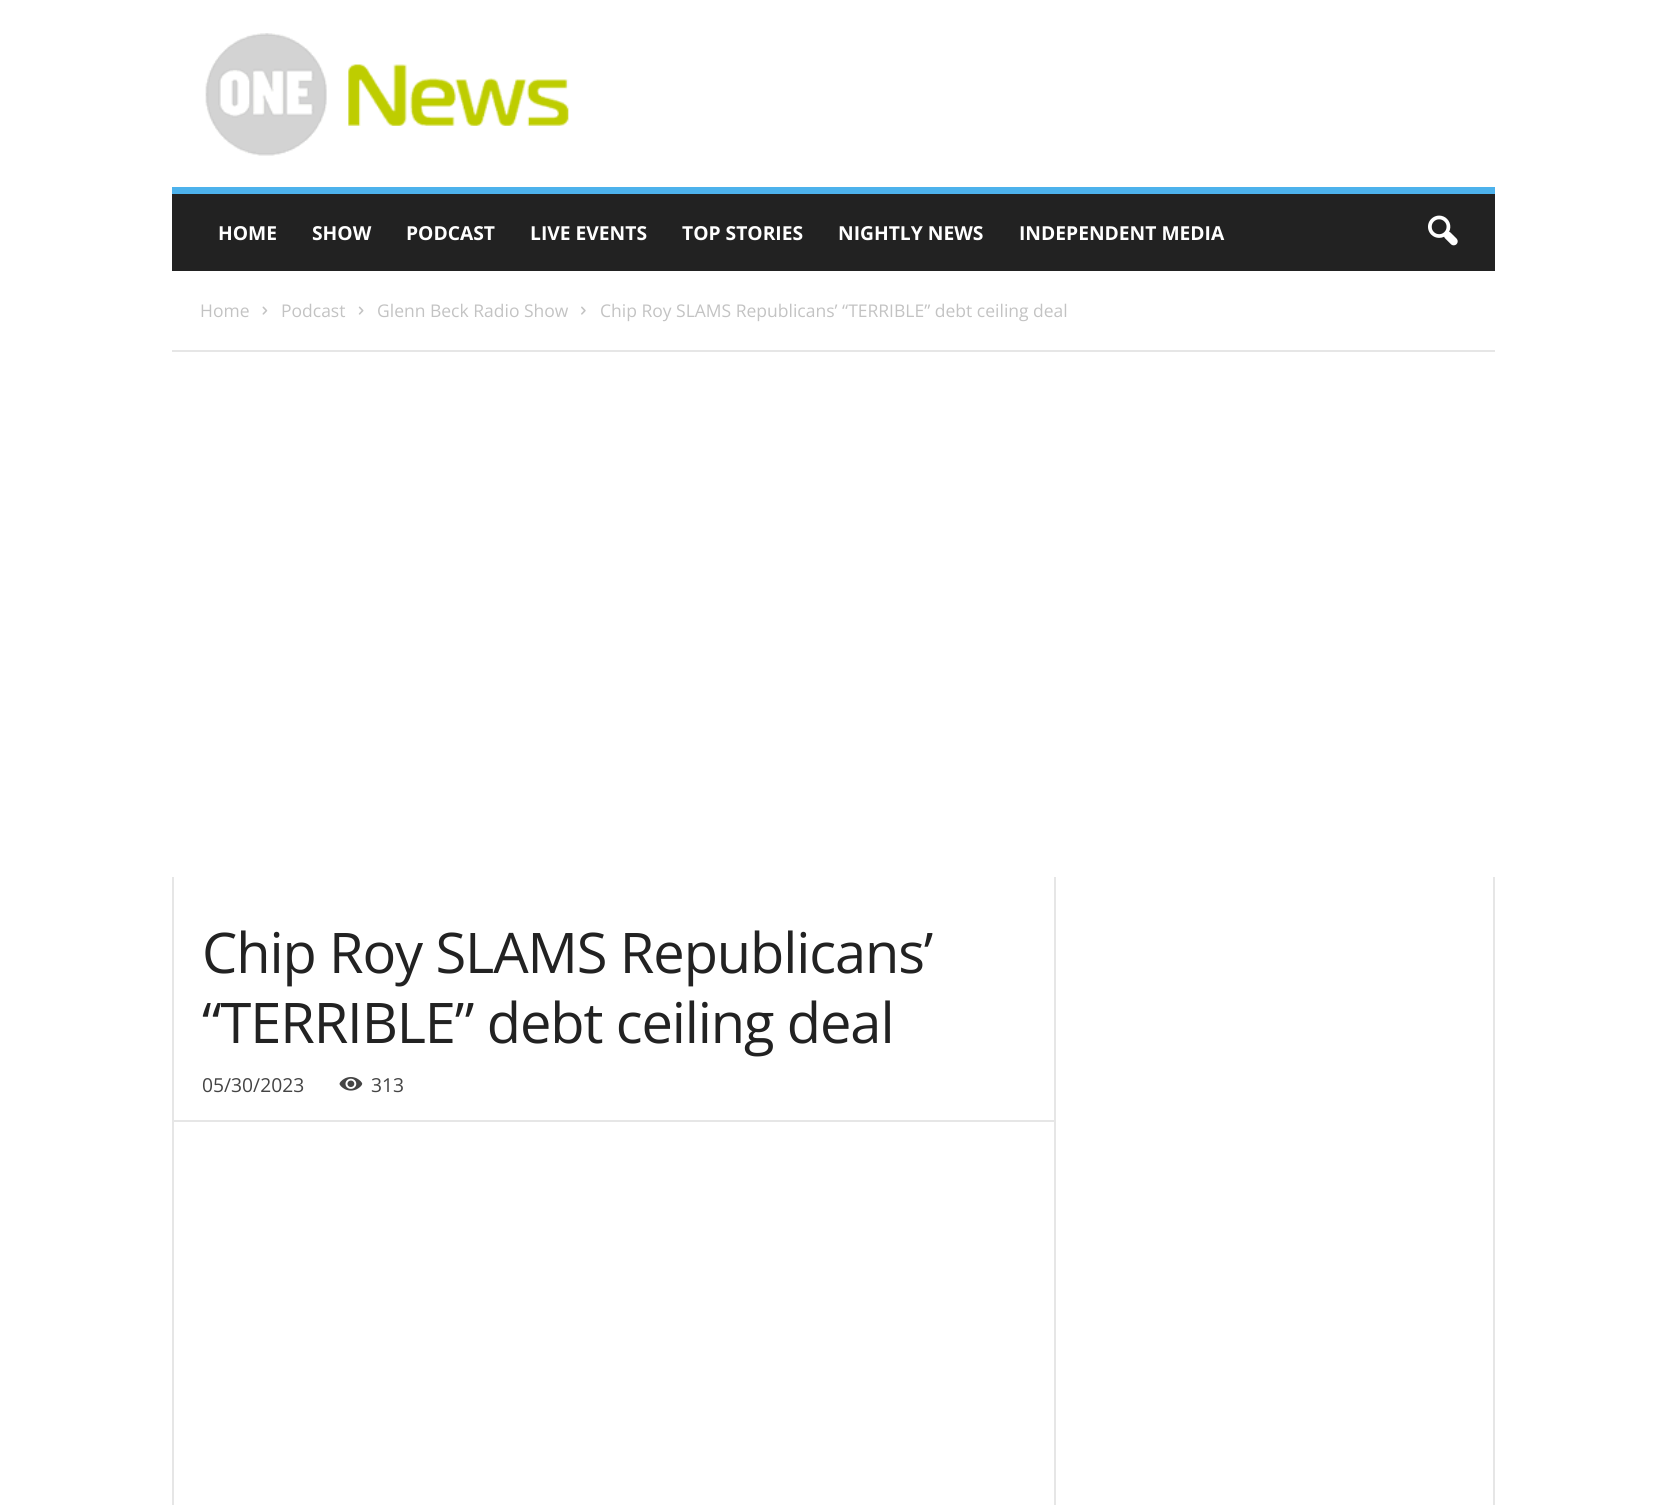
import math
import cairo

surface = cairo.ImageSurface(cairo.Format.RGB24, 1663, 1505)
ctx = cairo.Context(surface)
options = cairo.FontOptions()
options.set_hint_metrics(cairo.HintMetrics.OFF)
options.set_hint_style(cairo.HintStyle.NONE)
ctx.set_font_options(options)
ctx.set_miter_limit(4)


def ink(r, g, b):
    ctx.set_source_rgb(r / 255, g / 255, b / 255)


def write(x, y, s, family, size, color, bold=False, italic=False):
    ctx.select_font_face(family, cairo.FontSlant.ITALIC if italic else cairo.FontSlant.NORMAL, cairo.FontWeight.BOLD if bold else cairo.FontWeight.NORMAL)
    ctx.set_font_size(size)
    ink(*color)
    ctx.move_to(x, y)
    ctx.show_text(s)


def write_spaced(x, y, s, letter, word):
    ctx.move_to(x, y)
    for ch in s:
        ctx.show_text(ch)
        ctx.rel_move_to(letter + word * (ch == ' '), 0)


def block(x, y, w, h, *color):
    ink(*color)
    ctx.rectangle(x, y, w, h)
    ctx.fill()


def paste(path, x, y, w, h):
    ctx.save()
    ctx.set_source_surface(cairo.ImageSurface.create_from_png(path), x, y)
    ctx.rectangle(x, y, w, h)
    ctx.fill()
    ctx.restore()


s1 = dict(family="Open Sans", size=19.25, color=(255, 255, 255), bold=True)
s2 = dict(family="Open Sans", size=17.5, color=(195, 195, 195))
s3 = dict(family="Open Sans", size=19.25, color=(68, 68, 68))

ink(255, 255, 255)
ctx.paint()
paste("pic1.png", 205, 33, 364, 123)
block(172, 194, 1323, 77, 34, 34, 34)
block(172, 187, 1323, 7, 77, 178, 236)
write(218, 240, "HOME", **s1)
write(312, 240, "SHOW", **s1)
write(406, 240, "PODCAST", **s1)
write(530, 240, "LIVE EVENTS", **s1)
write(682, 240, "TOP STORIES", **s1)
write(838, 240, "NIGHTLY NEWS", **s1)
write(1019, 240, "INDEPENDENT MEDIA", **s1)
paste("pic2.png", 1428, 215, 30, 31)
block(172, 350, 1323, 2, 230, 230, 230)
write(200, 317, "Home", **s2)
paste("pic3.png", 262, 306, 6, 9)
write(281, 317, "Podcast", **s2)
paste("pic4.png", 358, 306, 6, 9)
write(377, 317, "Glenn Beck Radio Show", **s2)
paste("pic5.png", 581, 306, 5, 9)
write(600, 317, "Chip Roy SLAMS Republicans’ “TERRIBLE” debt ceiling deal", **s2)
block(172, 877, 2, 628, 230, 230, 230)
ctx.set_font_size(56)
ink(34, 34, 34)
write_spaced(202, 973, "Chip Roy SLAMS Republicans’", -1.1, 0)
write_spaced(202, 1043, "“TERRIBLE” debt ceiling deal", -1.1, 0)
write(202, 1092, "05/30/2023", **s3)
paste("pic6.png", 339, 1077, 24, 14)
write(371, 1092, "313", **s3)
block(173, 1120, 881, 2, 230, 230, 230)
block(1054, 877, 2, 628, 230, 230, 230)
block(1493, 877, 2, 628, 230, 230, 230)
surface.write_to_png("screenshot.png")
